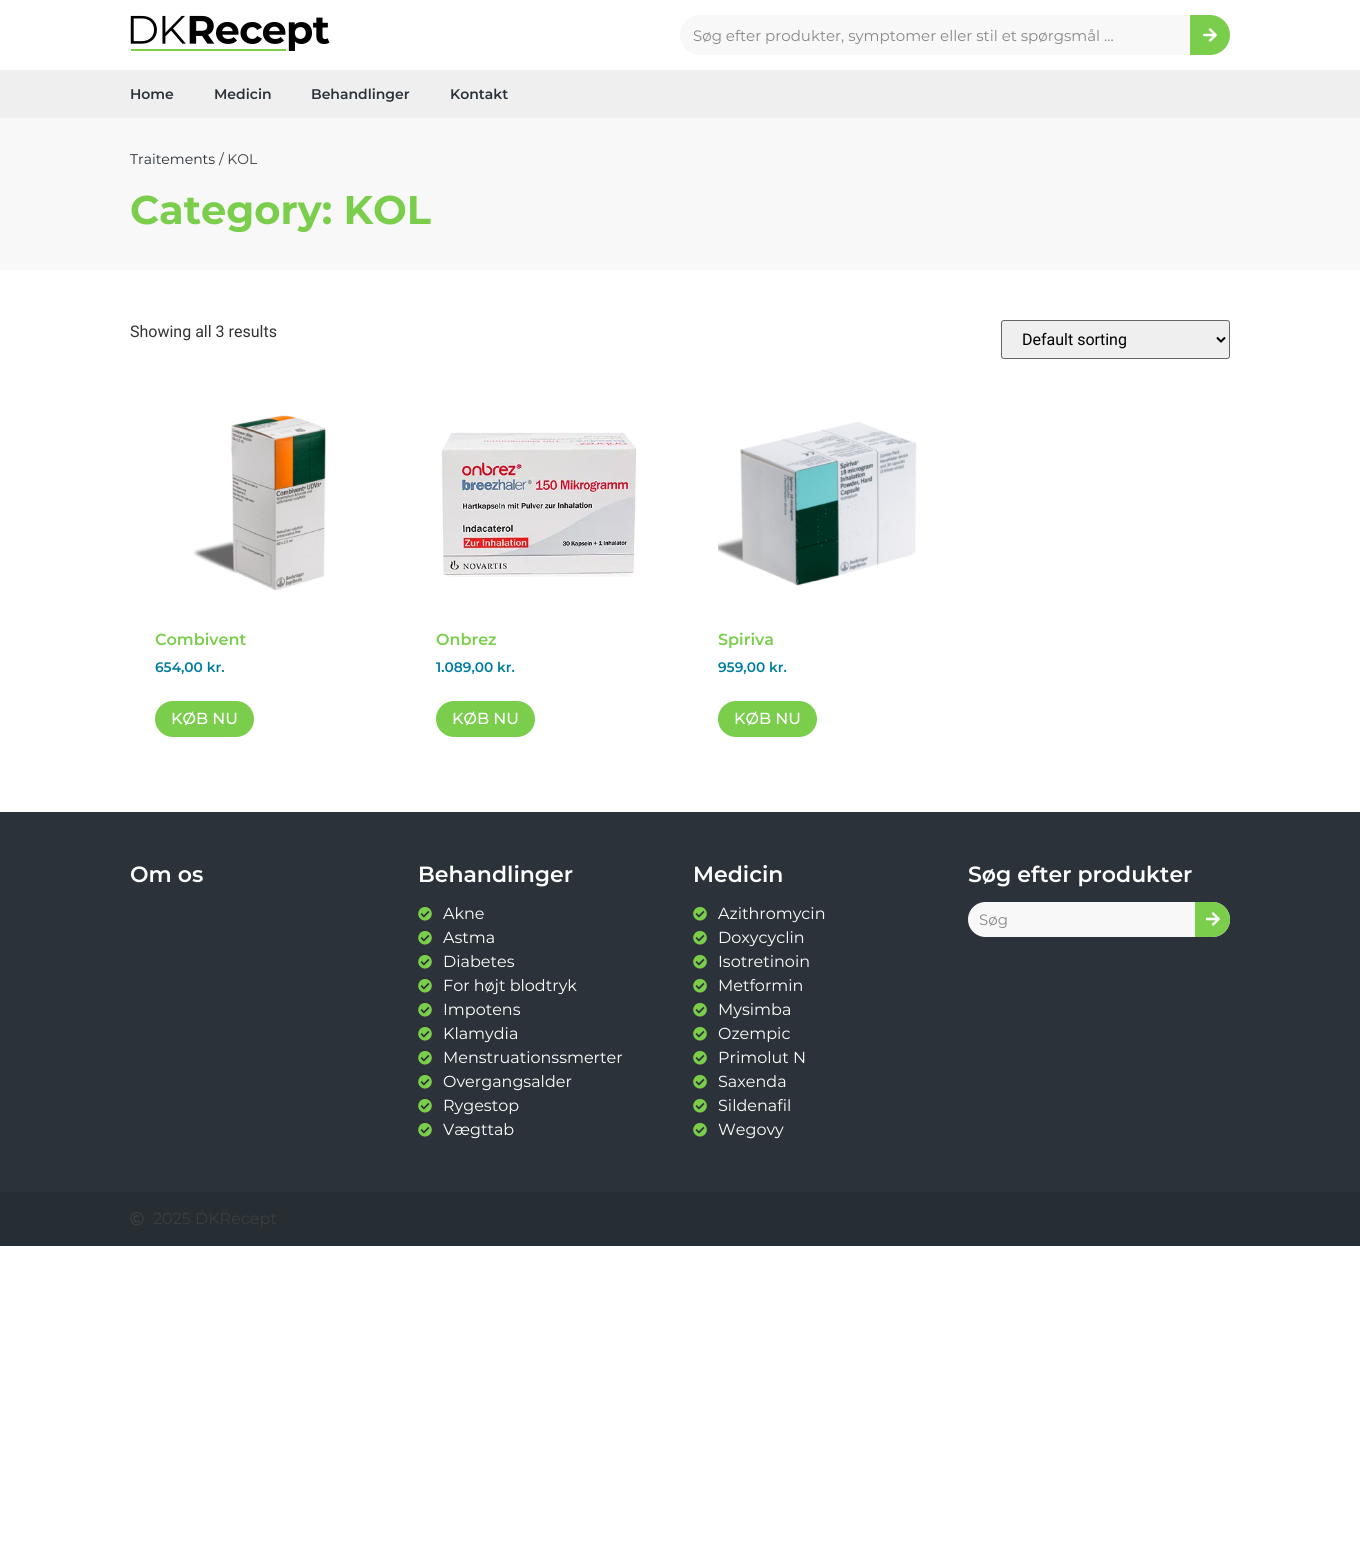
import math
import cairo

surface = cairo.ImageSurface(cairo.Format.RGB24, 1360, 1550)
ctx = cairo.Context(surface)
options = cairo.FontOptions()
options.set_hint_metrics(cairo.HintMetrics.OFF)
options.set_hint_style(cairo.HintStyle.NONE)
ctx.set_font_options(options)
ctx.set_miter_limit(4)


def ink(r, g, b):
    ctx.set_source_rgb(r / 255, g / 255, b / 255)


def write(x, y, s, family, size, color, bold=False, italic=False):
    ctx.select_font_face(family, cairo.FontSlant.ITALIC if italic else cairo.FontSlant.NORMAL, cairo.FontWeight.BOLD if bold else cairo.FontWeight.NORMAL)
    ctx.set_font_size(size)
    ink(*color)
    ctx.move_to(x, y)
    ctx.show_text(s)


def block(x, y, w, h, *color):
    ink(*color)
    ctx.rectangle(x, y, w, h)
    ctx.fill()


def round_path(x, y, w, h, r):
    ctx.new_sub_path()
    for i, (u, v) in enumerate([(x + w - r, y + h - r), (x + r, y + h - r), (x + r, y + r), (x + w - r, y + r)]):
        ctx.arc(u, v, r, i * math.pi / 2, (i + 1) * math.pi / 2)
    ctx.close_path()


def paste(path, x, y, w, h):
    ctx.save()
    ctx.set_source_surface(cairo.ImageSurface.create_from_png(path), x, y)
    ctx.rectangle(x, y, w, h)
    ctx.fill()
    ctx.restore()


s1 = dict(family="Montserrat", size=15, color=(135, 136, 136))
s2 = dict(family="Montserrat SemiBold", size=14, color=(43, 50, 57))
s3 = dict(family="Montserrat", size=14, color=(38, 45, 51))
s4 = dict(family="Montserrat", size=14, color=(59, 61, 62))
s5 = dict(family="Montserrat", size=40, color=(122, 206, 76), bold=True)
s6 = dict(family="Roboto", size=16, color=(51, 51, 51))
s7 = dict(family="Roboto", size=16, color=(0, 0, 0))
s8 = dict(family="Montserrat SemiBold", size=16, color=(122, 206, 76))
s9 = dict(family="Montserrat SemiBold", size=13.75, color=(0, 125, 158))
s10 = dict(family="Montserrat Medium", size=16, color=(255, 255, 255))
s11 = dict(family="Montserrat SemiBold", size=22, color=(255, 255, 255))
s12 = dict(family="Montserrat", size=16, color=(255, 255, 255))
s13 = dict(family="Montserrat", size=16, color=(59, 61, 62))

ink(255, 255, 255)
ctx.paint()
paste("pic1.png", 130, 15, 200, 36)
ink(248, 248, 248)
round_path(680, 15, 550, 40, 20)
ctx.fill()
write(693, 41, "Søg efter produkter, symptomer eller stil et spørgsmål …", **s1)
ink(122, 206, 76)
ctx.new_path()
ctx.move_to(1190, 15)
ctx.line_to(1210, 15)
ctx.curve_to(1221, 15, 1230, 24, 1230, 35)
ctx.curve_to(1230, 46, 1221, 55, 1210, 55)
ctx.line_to(1190, 55)
ctx.close_path()
ctx.fill()
paste("pic2.png", 1203, 28, 14, 14)
block(0, 70, 1360, 48, 239, 239, 239)
write(130, 99, "Home", **s2)
write(214, 99, "Medicin", **s2)
write(311, 99, "Behandlinger", **s2)
write(450, 99, "Kontakt", **s2)
block(0, 118, 1360, 152, 248, 248, 248)
write(130, 164, "Traitements", **s3)
write(219, 164, "/ KOL", **s4)
write(130, 224, "Category: KOL", **s5)
write(130, 337, "Showing all 3 results", **s6)
ink(239, 239, 239)
round_path(1001.5, 320.5, 228, 38, 2.5)
ctx.fill_preserve()
ink(102, 102, 102)
ctx.set_line_width(1)
ctx.stroke()
ctx.new_path()
ctx.move_to(1217, 337.5)
ctx.line_to(1221, 341.5)
ctx.line_to(1225, 337.5)
ink(0, 0, 0)
ctx.set_line_width(2)
ctx.stroke()
write(1022, 345, "Default sorting", **s7)
paste("pic3.png", 193, 415, 133, 176)
write(155, 645, "Combivent", **s8)
write(155, 672, "654,00 kr.", **s9)
ink(122, 206, 76)
round_path(155, 701, 99, 36, 18)
ctx.fill()
write(171, 724, "KØB NU", **s10)
paste("pic4.png", 441, 432, 196, 145)
write(436, 645, "Onbrez", **s8)
write(436, 672, "1.089,00 kr.", **s9)
ink(122, 206, 76)
round_path(436, 701, 99, 36, 18)
ctx.fill()
write(452, 724, "KØB NU", **s10)
paste("pic5.png", 718, 421, 199, 165)
write(718, 645, "Spiriva", **s8)
write(718, 672, "959,00 kr.", **s9)
ink(122, 206, 76)
round_path(718, 701, 99, 36, 18)
ctx.fill()
write(734, 724, "KØB NU", **s10)
block(0, 812, 1360, 380, 43, 50, 57)
write(130, 882, "Om os", **s11)
write(418, 882, "Behandlinger", **s11)
paste("pic6.png", 418, 907, 14, 14)
write(443, 919, "Akne", **s12)
paste("pic6.png", 418, 931, 14, 14)
write(443, 943, "Astma", **s12)
paste("pic6.png", 418, 955, 14, 14)
write(443, 967, "Diabetes", **s12)
paste("pic6.png", 418, 979, 14, 14)
write(443, 991, "For højt blodtryk", **s12)
paste("pic6.png", 418, 1003, 14, 14)
write(443, 1015, "Impotens", **s12)
paste("pic6.png", 418, 1027, 14, 14)
write(443, 1039, "Klamydia", **s12)
paste("pic6.png", 418, 1051, 14, 14)
write(443, 1063, "Menstruationssmerter", **s12)
paste("pic6.png", 418, 1075, 14, 14)
write(443, 1087, "Overgangsalder", **s12)
paste("pic6.png", 418, 1099, 14, 14)
write(443, 1111, "Rygestop", **s12)
paste("pic6.png", 418, 1123, 14, 14)
write(443, 1135, "Vægttab", **s12)
write(693, 882, "Medicin", **s11)
paste("pic6.png", 693, 907, 14, 14)
write(718, 919, "Azithromycin", **s12)
paste("pic6.png", 693, 931, 14, 14)
write(718, 943, "Doxycyclin", **s12)
paste("pic6.png", 693, 955, 14, 14)
write(718, 967, "Isotretinoin", **s12)
paste("pic6.png", 693, 979, 14, 14)
write(718, 991, "Metformin", **s12)
paste("pic6.png", 693, 1003, 14, 14)
write(718, 1015, "Mysimba", **s12)
paste("pic6.png", 693, 1027, 14, 14)
write(718, 1039, "Ozempic", **s12)
paste("pic6.png", 693, 1051, 14, 14)
write(718, 1063, "Primolut N", **s12)
paste("pic6.png", 693, 1075, 14, 14)
write(718, 1087, "Saxenda", **s12)
paste("pic6.png", 693, 1099, 14, 14)
write(718, 1111, "Sildenafil", **s12)
paste("pic6.png", 693, 1123, 14, 14)
write(718, 1135, "Wegovy", **s12)
write(968, 882, "Søg efter produkter", **s11)
ink(248, 248, 248)
round_path(968, 902, 262, 35, 17.5)
ctx.fill()
write(979, 925, "Søg", **s1)
ink(122, 206, 76)
ctx.new_path()
ctx.move_to(1195, 902)
ctx.line_to(1212.5, 902)
ctx.curve_to(1222, 902, 1230, 910, 1230, 919.5)
ctx.curve_to(1230, 929, 1222, 937, 1212.5, 937)
ctx.line_to(1195, 937)
ctx.close_path()
ctx.fill()
paste("pic2.png", 1206, 912, 14, 14)
block(0, 1192, 1360, 54, 38, 45, 51)
paste("pic7.png", 130, 1212, 14, 14)
write(153, 1224, "2025 DKRecept", **s13)
surface.write_to_png("screenshot.png")
